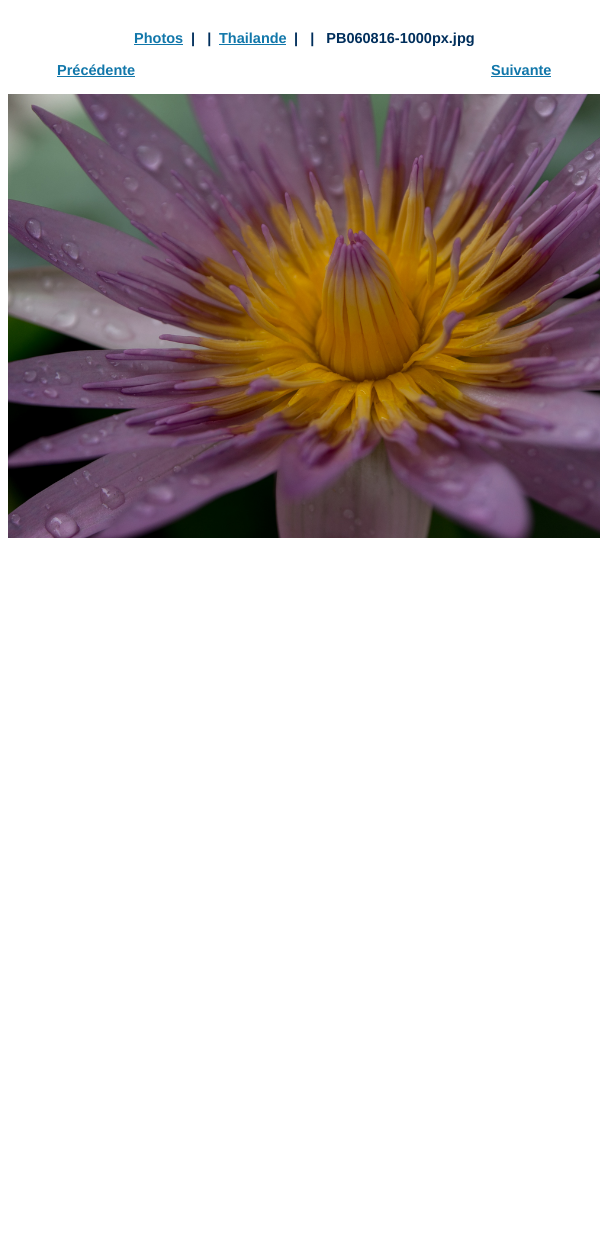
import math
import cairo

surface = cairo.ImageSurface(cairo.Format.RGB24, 608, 1249)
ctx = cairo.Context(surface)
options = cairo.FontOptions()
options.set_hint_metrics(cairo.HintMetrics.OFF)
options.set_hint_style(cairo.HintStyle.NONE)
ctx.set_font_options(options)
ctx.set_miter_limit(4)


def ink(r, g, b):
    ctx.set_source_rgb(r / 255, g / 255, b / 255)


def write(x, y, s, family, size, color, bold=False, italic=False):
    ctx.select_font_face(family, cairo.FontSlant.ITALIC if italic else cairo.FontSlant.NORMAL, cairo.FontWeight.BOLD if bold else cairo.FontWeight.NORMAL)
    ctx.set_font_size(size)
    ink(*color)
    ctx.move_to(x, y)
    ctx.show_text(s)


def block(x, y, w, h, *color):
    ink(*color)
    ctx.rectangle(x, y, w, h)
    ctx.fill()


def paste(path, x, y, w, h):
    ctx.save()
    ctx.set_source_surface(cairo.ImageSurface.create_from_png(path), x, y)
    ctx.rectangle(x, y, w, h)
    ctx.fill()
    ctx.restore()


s1 = dict(family="Liberation Sans", size=14.5, color=(17, 119, 170), bold=True)
s2 = dict(family="Liberation Sans", size=14.5, color=(0, 46, 91), bold=True)

ink(255, 255, 255)
ctx.paint()
write(134, 43, "Photos", **s1)
block(134, 44, 49, 1, 17, 119, 170)
write(191, 43, "|   |", **s2)
write(219, 43, "Thailande", **s1)
block(219, 44, 67, 1, 17, 119, 170)
write(294, 43, "|   |   PB060816-1000px.jpg", **s2)
write(57, 75, "Précédente", **s1)
block(57, 76, 78, 1, 17, 119, 170)
write(491, 75, "Suivante", **s1)
block(491, 76, 60, 1, 17, 119, 170)
paste("pic1.png", 8, 94, 592, 444)
surface.write_to_png("screenshot.png")
